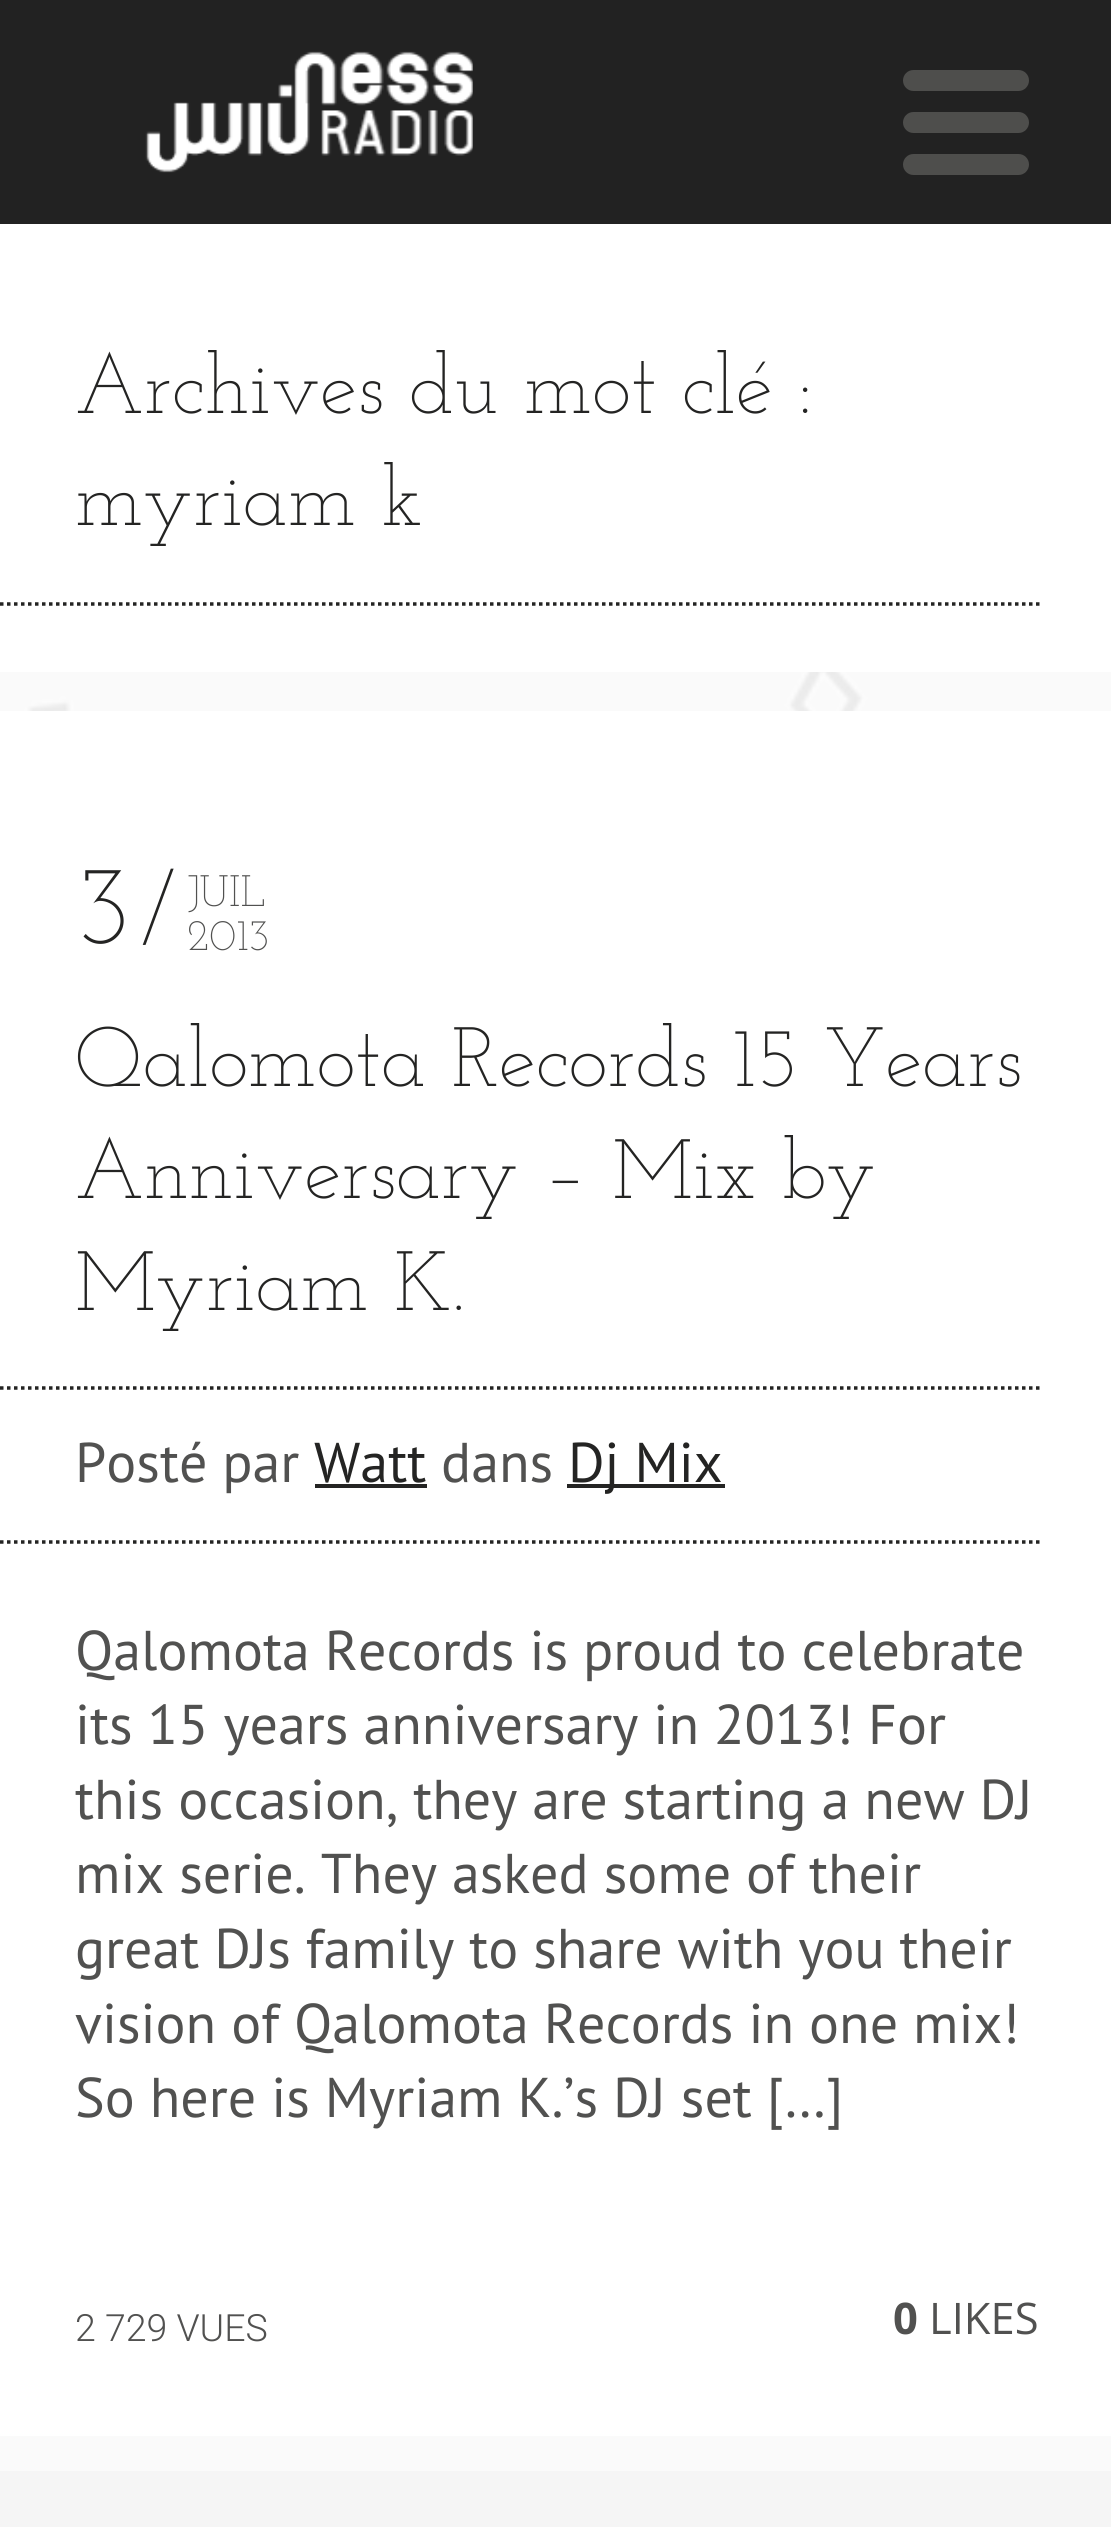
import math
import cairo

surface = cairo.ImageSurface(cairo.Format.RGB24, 1111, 2527)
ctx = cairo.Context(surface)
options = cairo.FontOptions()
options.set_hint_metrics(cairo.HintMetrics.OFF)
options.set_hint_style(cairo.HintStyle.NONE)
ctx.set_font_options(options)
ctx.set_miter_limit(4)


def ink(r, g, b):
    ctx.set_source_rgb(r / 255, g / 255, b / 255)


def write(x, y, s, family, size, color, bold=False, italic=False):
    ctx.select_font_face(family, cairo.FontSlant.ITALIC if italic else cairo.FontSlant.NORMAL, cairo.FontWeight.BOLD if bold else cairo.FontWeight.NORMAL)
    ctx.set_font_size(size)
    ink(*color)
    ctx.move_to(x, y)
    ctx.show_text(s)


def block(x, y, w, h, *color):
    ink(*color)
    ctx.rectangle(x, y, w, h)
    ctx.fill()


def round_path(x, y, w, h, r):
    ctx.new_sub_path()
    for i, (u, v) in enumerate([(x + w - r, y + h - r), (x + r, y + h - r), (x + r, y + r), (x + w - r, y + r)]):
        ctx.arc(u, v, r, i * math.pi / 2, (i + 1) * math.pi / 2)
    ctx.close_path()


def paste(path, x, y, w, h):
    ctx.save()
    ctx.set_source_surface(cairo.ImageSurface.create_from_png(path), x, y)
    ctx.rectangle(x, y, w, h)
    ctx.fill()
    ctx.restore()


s1 = dict(family="Josefin Slab Light", size=84, color=(36, 36, 35))
s2 = dict(family="Josefin Slab Light", size=112, color=(36, 36, 35))
s3 = dict(family="Josefin Slab Light", size=101, color=(36, 36, 35))
s4 = dict(family="Josefin Slab Light", size=44, color=(81, 81, 80))
s5 = dict(family="PT Sans", size=56, color=(81, 81, 80))
s6 = dict(family="PT Sans", size=56, color=(36, 36, 35))
s7 = dict(family="Roboto Light", size=37.5, color=(81, 81, 80))
s8 = dict(family="Open Sans", size=43.5, color=(81, 81, 80), bold=True)
s9 = dict(family="Open Sans", size=43.5, color=(81, 81, 80))

ink(34, 34, 34)
ctx.paint()
paste("pic1.png", 145, 51, 328, 122)
ink(78, 78, 76)
round_path(903, 112, 126, 21, 10.5)
ctx.fill()
round_path(903, 70, 126, 21, 10.5)
ctx.fill()
round_path(903, 154, 126, 21, 10.5)
ctx.fill()
paste("pic2.png", 0, 672, 1111, 1799)
block(0, 224, 1111, 448, 255, 255, 255)
write(75, 413, "Archives du mot clé :", **s1)
write(75, 525, "myriam k", **s1)
ctx.new_path()
ctx.move_to(0, 604)
ctx.line_to(1039.5, 604)
ctx.set_line_width(3.5)
ctx.set_dash([3.5, 3.5])
ctx.stroke()
block(0, 711, 1111, 1725, 255, 255, 255)
write(75, 943, "3", **s2)
write(141, 943, "/", **s3)
write(187, 906, "JUIL", **s4)
write(187, 950, "2013", **s4)
write(75, 1086, "Qalomota Records 15 Years", **s1)
write(75, 1198, "Anniversary – Mix by", **s1)
write(75, 1310, "Myriam K.", **s1)
ctx.new_path()
ctx.move_to(0, 1388)
ctx.line_to(1039.5, 1388)
ctx.stroke()
write(75, 1482, "Posté par", **s5)
write(314, 1482, "Watt", **s6)
block(315, 1484, 112, 4, 36, 36, 35)
write(441, 1482, "dans", **s5)
block(567, 1484, 158, 4, 36, 36, 35)
write(568, 1482, "Dj Mix", **s6)
ctx.new_path()
ctx.move_to(0, 1542)
ctx.line_to(1039.5, 1542)
ctx.stroke()
write(75, 1670, "Qalomota Records is proud to celebrate", **s5)
write(75, 1744, "its 15 years anniversary in 2013! For", **s5)
write(75, 1819, "this occasion, they are starting a new DJ", **s5)
write(75, 1893, "mix serie. They asked some of their", **s5)
write(75, 1968, "great DJs family to share with you their", **s5)
write(75, 2043, "vision of Qalomota Records in one mix!", **s5)
write(75, 2117, "So here is Myriam K.’s DJ set […]", **s5)
write(75, 2341, "2 729 VUES", **s7)
write(893, 2334, "0", **s8)
write(929, 2334, "LIKES", **s9)
block(0, 2471, 1111, 56, 245, 245, 245)
surface.write_to_png("screenshot.png")
